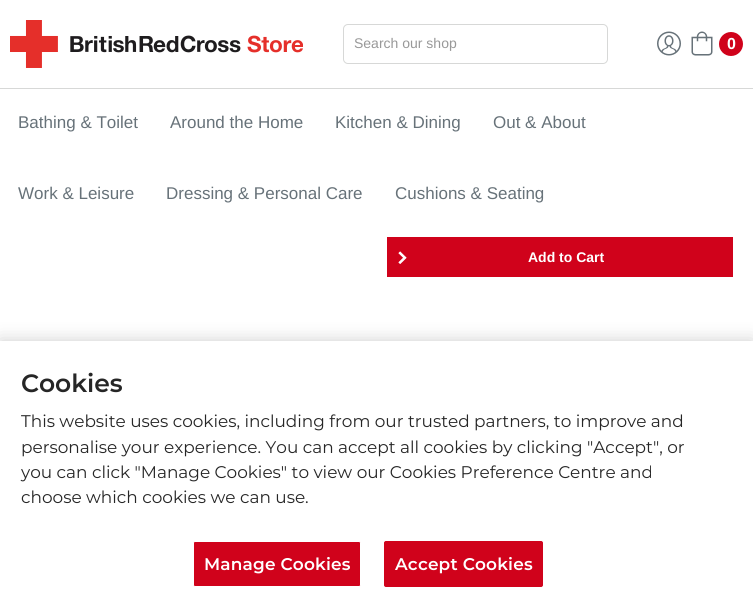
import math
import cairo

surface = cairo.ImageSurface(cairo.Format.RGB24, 753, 603)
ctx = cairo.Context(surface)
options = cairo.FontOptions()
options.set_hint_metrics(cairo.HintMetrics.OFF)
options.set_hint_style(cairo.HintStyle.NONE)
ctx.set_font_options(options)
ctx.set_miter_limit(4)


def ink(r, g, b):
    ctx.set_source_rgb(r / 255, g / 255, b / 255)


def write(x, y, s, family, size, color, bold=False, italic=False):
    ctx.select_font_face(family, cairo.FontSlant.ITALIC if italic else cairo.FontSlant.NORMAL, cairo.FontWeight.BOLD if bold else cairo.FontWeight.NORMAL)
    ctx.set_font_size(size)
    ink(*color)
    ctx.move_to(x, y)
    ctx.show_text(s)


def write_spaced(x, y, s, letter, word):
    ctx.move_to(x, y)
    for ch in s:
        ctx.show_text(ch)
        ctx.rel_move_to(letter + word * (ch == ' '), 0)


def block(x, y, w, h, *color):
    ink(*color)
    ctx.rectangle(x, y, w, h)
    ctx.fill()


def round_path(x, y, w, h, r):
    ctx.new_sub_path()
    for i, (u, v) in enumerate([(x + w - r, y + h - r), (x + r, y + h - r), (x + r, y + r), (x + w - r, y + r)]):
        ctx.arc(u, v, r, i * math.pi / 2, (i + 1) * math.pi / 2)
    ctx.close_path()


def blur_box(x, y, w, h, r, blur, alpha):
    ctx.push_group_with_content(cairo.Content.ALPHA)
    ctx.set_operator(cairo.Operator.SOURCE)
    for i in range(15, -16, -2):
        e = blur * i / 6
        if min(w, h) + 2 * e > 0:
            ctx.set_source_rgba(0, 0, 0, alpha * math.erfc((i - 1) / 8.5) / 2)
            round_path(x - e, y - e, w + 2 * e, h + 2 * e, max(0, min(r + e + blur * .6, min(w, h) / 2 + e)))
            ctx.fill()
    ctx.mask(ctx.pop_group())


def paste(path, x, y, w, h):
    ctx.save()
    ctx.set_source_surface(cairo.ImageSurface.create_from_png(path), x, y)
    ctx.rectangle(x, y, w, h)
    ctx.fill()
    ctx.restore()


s1 = dict(family="Liberation Sans", size=14, color=(152, 152, 152))
s2 = dict(family="Liberation Sans", size=16, color=(255, 255, 255), bold=True)
s3 = dict(family="Liberation Sans", size=17, color=(103, 114, 121))
s4 = dict(family="Liberation Sans", size=14, color=(255, 255, 255), bold=True)
s5 = dict(family="Montserrat SemiBold", size=25, color=(38, 38, 38))
s6 = dict(family="Montserrat", size=16.9, color=(38, 38, 38))

ink(255, 255, 255)
ctx.paint()
block(0, 88, 753, 1, 215, 216, 215)
paste("pic1.png", 10, 20, 293, 48)
round_path(343.5, 24.5, 264, 39, 4.5)
ctx.set_line_width(1)
ctx.stroke()
write(354, 48, "Search our shop", **s1)
paste("pic2.png", 657, 31, 24, 25)
paste("pic3.png", 691, 31, 22, 25)
ink(208, 2, 27)
ctx.arc(731, 44, 12, 0, 2 * math.pi)
ctx.fill()
write(727, 49, "0", **s2)
write(18, 128, "Bathing & Toilet", **s3)
write(170, 128, "Around the Home", **s3)
write(335, 128, "Kitchen & Dining", **s3)
write(493, 128, "Out & About", **s3)
write(18, 199, "Work & Leisure", **s3)
write(166, 199, "Dressing & Personal Care", **s3)
write(395, 199, "Cushions & Seating", **s3)
block(387, 237, 346, 40, 208, 2, 27)
paste("pic4.png", 398, 251, 9, 13)
write(528, 262, "Add to Cart", **s4)
ink(0, 0, 0)
blur_box(0, 341, 753, 262, 0, 9, 0.2)
block(0, 341, 753, 262, 255, 255, 255)
write(21, 392, "Cookies", **s5)
write(21, 427, "This website uses cookies, including from our trusted partners, to improve and", **s6)
write(21, 453, "personalise your experience. You can accept all cookies by clicking \"Accept\", or", **s6)
write(21, 478, "you can click \"Manage Cookies\" to view our Cookies Preference Centre and", **s6)
write(21, 503, "choose which cookies we can use.", **s6)
ink(208, 2, 27)
round_path(193.5, 541.5, 167, 45, 1.5)
ctx.fill_preserve()
ink(255, 255, 255)
ctx.stroke()
ctx.select_font_face("Montserrat SemiBold")
write_spaced(204, 570, "Manage Cookies", 0.2, 0)
ink(208, 2, 27)
round_path(384.5, 541.5, 158, 45, 1.5)
ctx.fill_preserve()
ctx.stroke()
ink(255, 255, 255)
write_spaced(395, 570, "Accept Cookies", 0.2, 0)
surface.write_to_png("screenshot.png")
